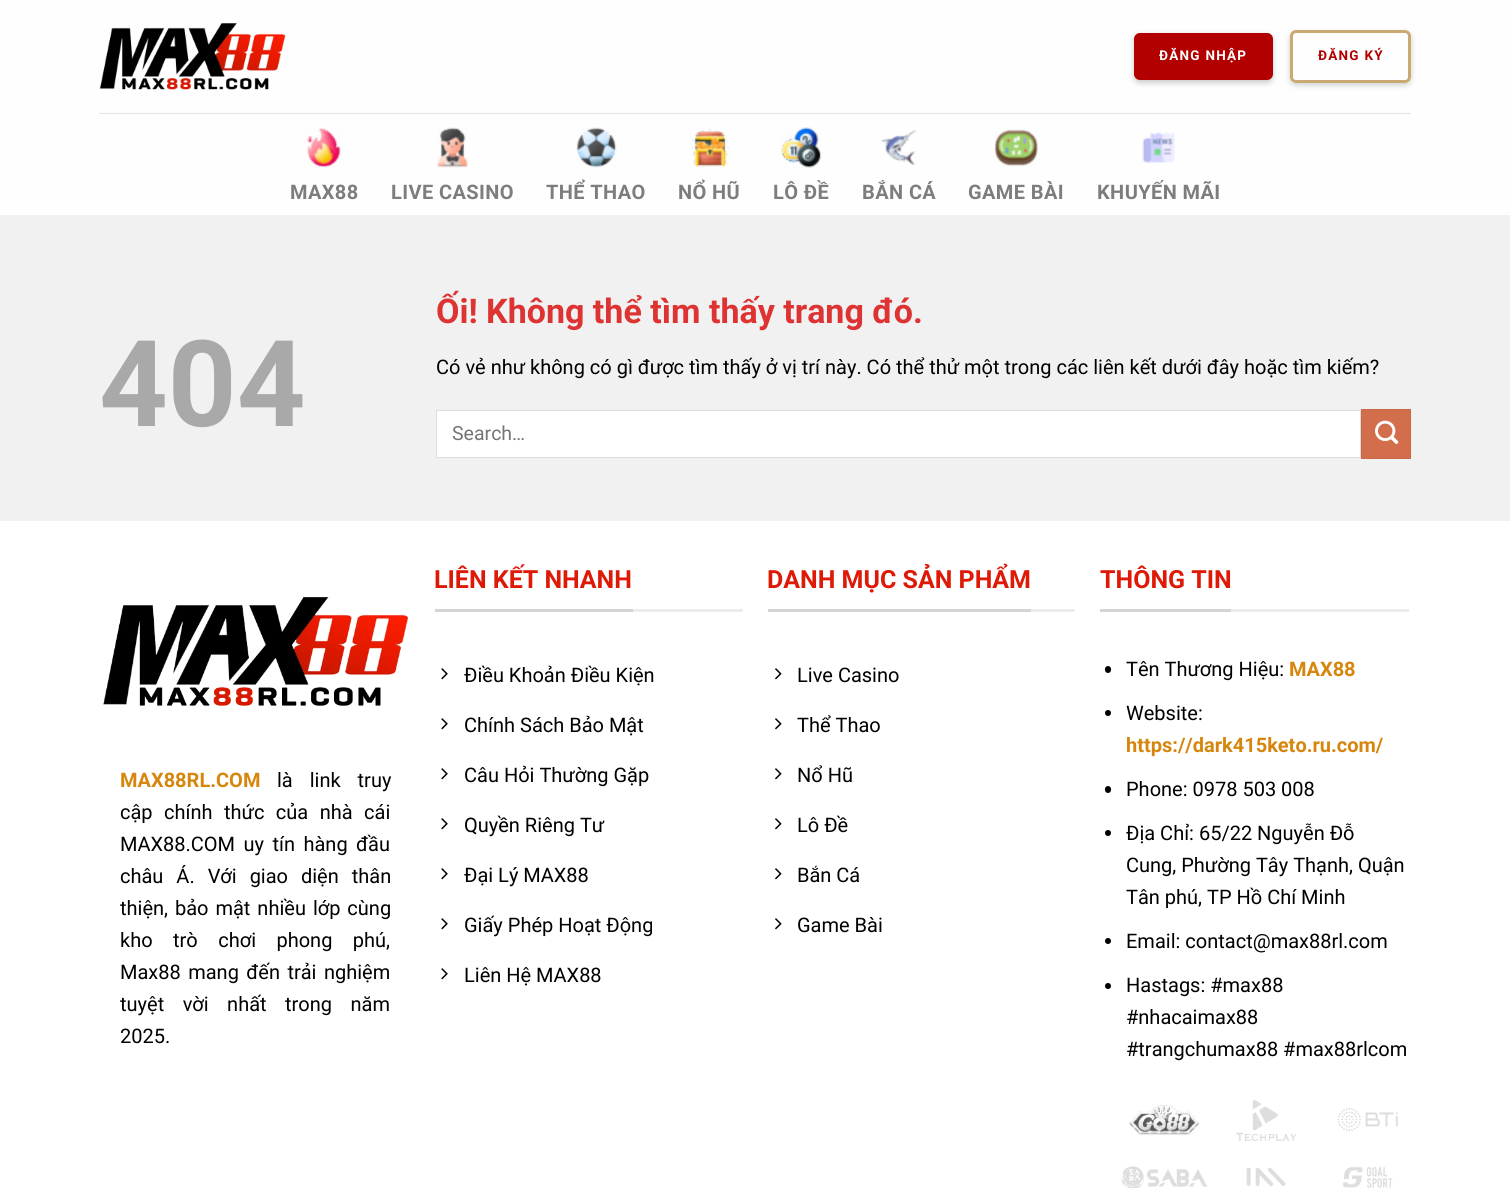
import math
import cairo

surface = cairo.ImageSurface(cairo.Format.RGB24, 1510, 1188)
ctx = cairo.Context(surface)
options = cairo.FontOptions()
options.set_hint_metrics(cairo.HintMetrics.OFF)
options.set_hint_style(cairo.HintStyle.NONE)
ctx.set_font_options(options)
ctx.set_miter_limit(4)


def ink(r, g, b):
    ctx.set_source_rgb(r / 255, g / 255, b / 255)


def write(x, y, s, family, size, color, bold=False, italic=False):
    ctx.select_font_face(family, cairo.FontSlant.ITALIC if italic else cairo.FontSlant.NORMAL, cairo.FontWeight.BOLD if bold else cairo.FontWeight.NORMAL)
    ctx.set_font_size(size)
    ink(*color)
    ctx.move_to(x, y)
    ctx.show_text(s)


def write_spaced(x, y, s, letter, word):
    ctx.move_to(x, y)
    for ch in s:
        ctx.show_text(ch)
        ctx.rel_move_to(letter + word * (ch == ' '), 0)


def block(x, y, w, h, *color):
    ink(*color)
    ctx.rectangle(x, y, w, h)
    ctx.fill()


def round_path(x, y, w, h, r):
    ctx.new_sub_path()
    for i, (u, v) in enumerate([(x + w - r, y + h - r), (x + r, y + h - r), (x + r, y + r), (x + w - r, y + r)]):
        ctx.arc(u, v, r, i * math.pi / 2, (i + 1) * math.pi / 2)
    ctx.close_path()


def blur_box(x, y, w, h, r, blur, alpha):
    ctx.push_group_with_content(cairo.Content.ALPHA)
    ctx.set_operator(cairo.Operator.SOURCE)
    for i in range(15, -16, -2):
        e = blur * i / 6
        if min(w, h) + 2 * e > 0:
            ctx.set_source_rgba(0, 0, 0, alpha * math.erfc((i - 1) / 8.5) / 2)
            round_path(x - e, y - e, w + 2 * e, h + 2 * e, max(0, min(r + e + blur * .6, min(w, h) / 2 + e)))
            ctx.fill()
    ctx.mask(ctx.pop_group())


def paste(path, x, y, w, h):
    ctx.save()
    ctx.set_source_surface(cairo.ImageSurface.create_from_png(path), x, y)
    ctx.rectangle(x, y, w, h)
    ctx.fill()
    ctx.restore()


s1 = dict(family="Roboto", size=120, color=(169, 169, 169), bold=True)
s2 = dict(family="Roboto", size=34, color=(221, 51, 51), bold=True)
s3 = dict(family="Roboto", size=20, color=(0, 0, 0))
s4 = dict(family="Roboto", size=19.5, color=(117, 117, 117))
s5 = dict(family="Roboto", size=20, color=(215, 134, 13), bold=True)
s6 = dict(family="Roboto", size=25, color=(222, 25, 6), bold=True)

ink(241, 241, 241)
ctx.paint()
block(0, 0, 1510, 215, 254, 254, 254)
paste("pic1.png", 99, 23, 187, 67)
ink(0, 0, 0)
blur_box(1134, 35, 139, 48, 6, 3, 0.2)
ink(178, 0, 0)
round_path(1134, 33, 139, 47, 6)
ctx.fill()
ctx.select_font_face("Roboto", cairo.FontSlant.NORMAL, cairo.FontWeight.BOLD)
ctx.set_font_size(13.5)
ink(255, 255, 255)
write_spaced(1159, 60, "ĐĂNG NHẬP", 1.25, 0)
ctx.save()
ctx.set_fill_rule(cairo.FillRule.EVEN_ODD)
ctx.new_path()
ctx.move_to(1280, 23)
ctx.line_to(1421, 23)
ctx.line_to(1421, 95)
ctx.line_to(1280, 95)
ctx.close_path()
ctx.move_to(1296, 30)
ctx.line_to(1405, 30)
ctx.curve_to(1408.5, 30, 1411, 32.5, 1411, 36)
ctx.line_to(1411, 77)
ctx.curve_to(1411, 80.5, 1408.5, 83, 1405, 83)
ctx.line_to(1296, 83)
ctx.curve_to(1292.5, 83, 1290, 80.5, 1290, 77)
ctx.line_to(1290, 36)
ctx.curve_to(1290, 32.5, 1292.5, 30, 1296, 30)
ctx.close_path()
ctx.clip()
ink(0, 0, 0)
blur_box(1290, 33, 121, 52, 6, 3, 0.2)
ctx.restore()
round_path(1291.5, 31.5, 118, 50, 4.5)
ink(201, 170, 113)
ctx.set_line_width(3)
ctx.stroke()
ink(178, 0, 0)
write_spaced(1318, 60, "ĐĂNG KÝ", 1.25, 0)
block(99, 113, 1312, 1, 229, 229, 229)
paste("pic2.png", 307, 127, 34, 41)
ctx.set_font_size(20)
ink(125, 125, 125)
write_spaced(290, 199, "MAX88", 0.4, 0)
paste("pic3.png", 437, 127, 31, 41)
write_spaced(391, 199, "LIVE CASINO", 0.4, 0)
paste("pic4.png", 576, 127, 41, 41)
write_spaced(546, 199, "THỂ THAO", 0.4, 0)
paste("pic5.png", 691, 128, 38, 40)
write_spaced(678, 199, "NỔ HŨ", 0.4, 0)
paste("pic6.png", 781, 127, 41, 41)
write_spaced(773, 199, "LÔ ĐỀ", 0.4, 0)
paste("pic7.png", 881, 130, 36, 36)
write_spaced(862, 199, "BẮN CÁ", 0.4, 0)
paste("pic8.png", 994, 129, 44, 38)
write_spaced(968, 199, "GAME BÀI", 0.4, 0)
paste("pic9.png", 1142, 132, 33, 31)
write_spaced(1097, 199, "KHUYẾN MÃI", 0.4, 0)
write(99, 426, "404", **s1)
write(436, 323, "Ối! Không thể tìm thấy trang đó.", **s2)
write(436, 374, "Có vẻ như không có gì được tìm thấy ở vị trí này. Có thể thử một trong các liên kết dưới đây hoặc tìm kiếm?", **s3)
ink(255, 255, 255)
ctx.rectangle(436.5, 410.5, 924, 47)
ctx.fill_preserve()
ink(221, 221, 221)
ctx.set_line_width(1)
ctx.stroke()
write(452, 440, "Search…", **s4)
ink(210, 110, 75)
ctx.rectangle(1361.5, 409.5, 49, 49)
ctx.fill_preserve()
ink(200, 105, 71)
ctx.stroke()
paste("pic10.png", 1375, 420, 24, 24)
block(0, 521, 1510, 667, 255, 255, 255)
paste("pic11.png", 103, 597, 305, 109)
write(120, 787, "MAX88RL.COM", **s5)
ctx.select_font_face("Roboto")
ink(0, 0, 0)
write_spaced(277, 787, "là link truy", 0, 12)
write_spaced(120, 819, "cập chính thức của nhà cái", 0, 6.5)
write_spaced(120, 851, "MAX88.COM uy tín hàng đầu", 0, 3.5)
write_spaced(120, 883, "châu Á. Với giao diện thân", 0, 8)
write_spaced(120, 915, "thiện, bảo mật nhiều lớp cùng", 0, 2)
write_spaced(120, 947, "kho trò chơi phong phú,", 0, 15.5)
write_spaced(120, 979, "Max88 mang đến trải nghiệm", 0, 2.5)
write_spaced(120, 1011, "tuyệt vời nhất trong năm", 0, 13.5)
write(120, 1043, "2025.", **s3)
block(633, 609, 110, 3, 236, 236, 236)
block(435, 609, 198, 3, 212, 212, 212)
write(434, 588, "LIÊN KẾT NHANH", **s6)
paste("pic12.png", 441, 668, 7, 12)
write(464, 682, "Điều Khoản Điều Kiện", **s3)
paste("pic12.png", 441, 718, 7, 12)
write(464, 732, "Chính Sách Bảo Mật", **s3)
paste("pic12.png", 441, 768, 7, 12)
write(464, 782, "Câu Hỏi Thường Gặp", **s3)
paste("pic12.png", 441, 818, 7, 12)
write(464, 832, "Quyền Riêng Tư", **s3)
paste("pic12.png", 441, 868, 7, 12)
write(464, 882, "Đại Lý MAX88", **s3)
paste("pic12.png", 441, 918, 7, 12)
write(464, 932, "Giấy Phép Hoạt Động", **s3)
paste("pic12.png", 441, 968, 7, 12)
write(464, 982, "Liên Hệ MAX88", **s3)
block(1031, 609, 44, 3, 236, 236, 236)
block(768, 609, 263, 3, 212, 212, 212)
write(767, 588, "DANH MỤC SẢN PHẨM", **s6)
paste("pic13.png", 775, 668, 7, 12)
write(797, 682, "Live Casino", **s3)
paste("pic13.png", 775, 718, 7, 12)
write(797, 732, "Thể Thao", **s3)
paste("pic13.png", 775, 768, 7, 12)
write(797, 782, "Nổ Hũ", **s3)
paste("pic13.png", 775, 818, 7, 12)
write(797, 832, "Lô Đề", **s3)
paste("pic13.png", 775, 868, 7, 12)
write(797, 882, "Bắn Cá", **s3)
paste("pic13.png", 775, 918, 7, 12)
write(797, 932, "Game Bài", **s3)
block(1231, 609, 178, 3, 236, 236, 236)
block(1100, 609, 131, 3, 212, 212, 212)
write(1100, 588, "THÔNG TIN", **s6)
ink(0, 0, 0)
round_path(1105, 666, 6, 7, 3)
ctx.fill()
write(1126, 676, "Tên Thương Hiệu:", **s3)
write(1289, 676, "MAX88", **s5)
ink(0, 0, 0)
ctx.new_path()
ctx.arc(1108, 713, 3, 0, 2 * math.pi)
ctx.fill()
write(1126, 720, "Website:", **s3)
write(1126, 752, "https://dark415keto.ru.com/", **s5)
ink(0, 0, 0)
round_path(1105, 786, 6, 7, 3)
ctx.fill()
write(1126, 796, "Phone: 0978 503 008", **s3)
ctx.new_path()
ctx.arc(1108, 833, 3, 0, 2 * math.pi)
ctx.fill()
write(1126, 840, "Địa Chỉ: 65/22 Nguyễn Đỗ", **s3)
write(1126, 872, "Cung, Phường Tây Thạnh, Quận", **s3)
write(1126, 904, "Tân phú, TP Hồ Chí Minh", **s3)
ctx.new_path()
ctx.arc(1108, 941, 3, 0, 2 * math.pi)
ctx.fill()
write(1126, 948, "Email: contact@max88rl.com", **s3)
ctx.new_path()
ctx.arc(1108, 986, 3, 0, 2 * math.pi)
ctx.fill()
write(1126, 992, "Hastags: #max88", **s3)
write(1126, 1024, "#nhacaimax88", **s3)
write(1126, 1056, "#trangchumax88 #max88rlcom", **s3)
paste("pic14.png", 1121, 1100, 277, 88)
surface.write_to_png("screenshot.png")
